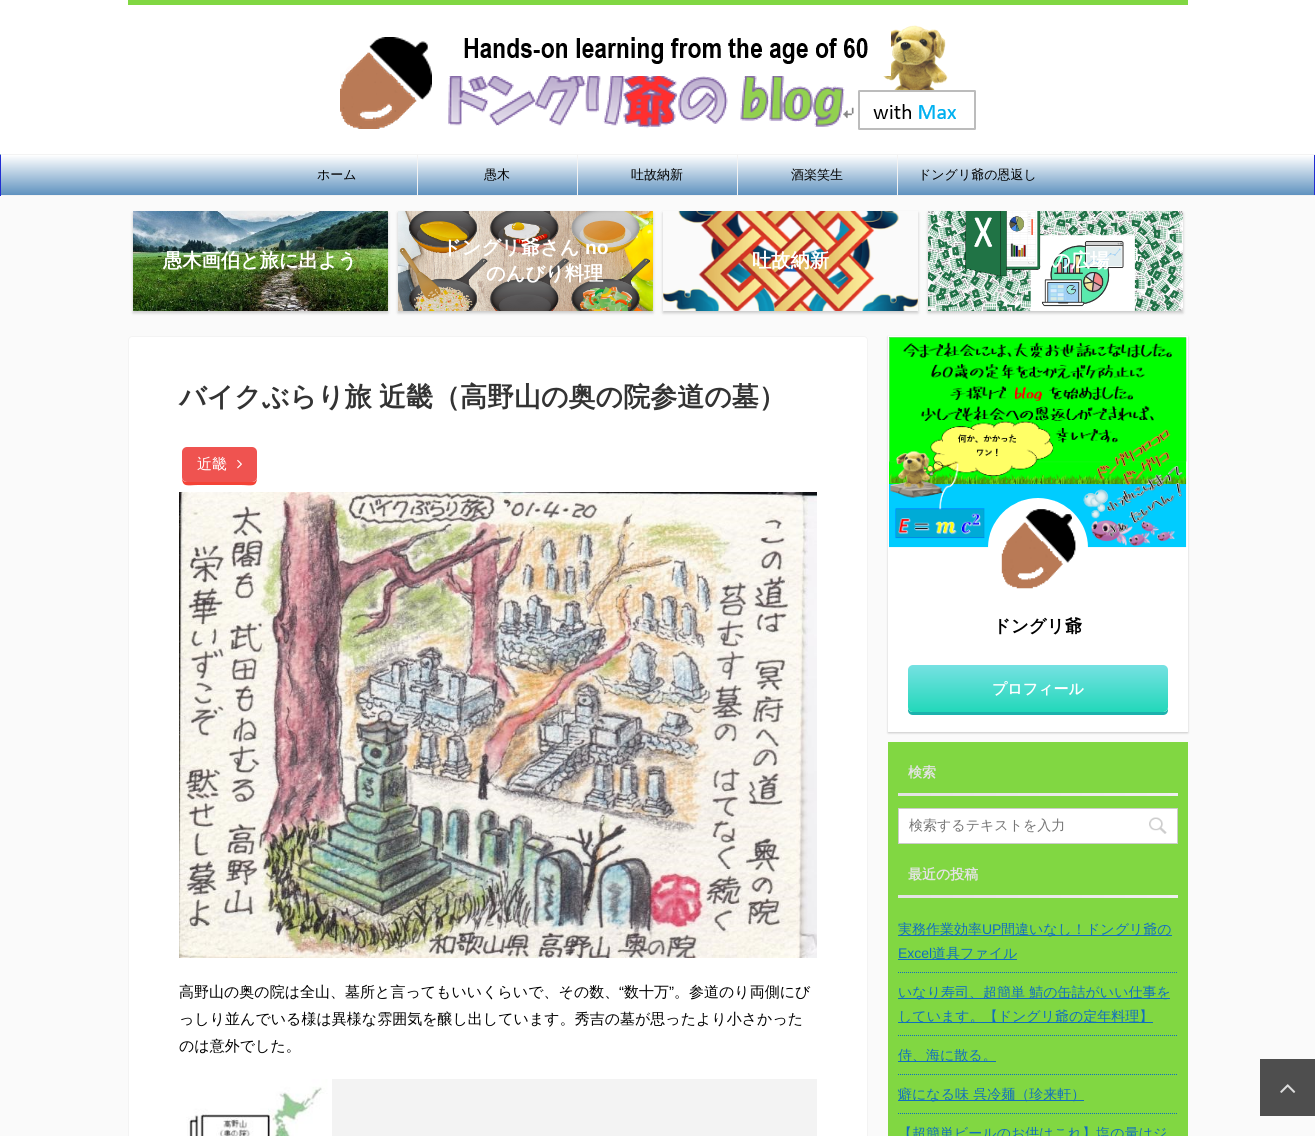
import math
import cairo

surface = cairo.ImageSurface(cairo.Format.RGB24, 1315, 1136)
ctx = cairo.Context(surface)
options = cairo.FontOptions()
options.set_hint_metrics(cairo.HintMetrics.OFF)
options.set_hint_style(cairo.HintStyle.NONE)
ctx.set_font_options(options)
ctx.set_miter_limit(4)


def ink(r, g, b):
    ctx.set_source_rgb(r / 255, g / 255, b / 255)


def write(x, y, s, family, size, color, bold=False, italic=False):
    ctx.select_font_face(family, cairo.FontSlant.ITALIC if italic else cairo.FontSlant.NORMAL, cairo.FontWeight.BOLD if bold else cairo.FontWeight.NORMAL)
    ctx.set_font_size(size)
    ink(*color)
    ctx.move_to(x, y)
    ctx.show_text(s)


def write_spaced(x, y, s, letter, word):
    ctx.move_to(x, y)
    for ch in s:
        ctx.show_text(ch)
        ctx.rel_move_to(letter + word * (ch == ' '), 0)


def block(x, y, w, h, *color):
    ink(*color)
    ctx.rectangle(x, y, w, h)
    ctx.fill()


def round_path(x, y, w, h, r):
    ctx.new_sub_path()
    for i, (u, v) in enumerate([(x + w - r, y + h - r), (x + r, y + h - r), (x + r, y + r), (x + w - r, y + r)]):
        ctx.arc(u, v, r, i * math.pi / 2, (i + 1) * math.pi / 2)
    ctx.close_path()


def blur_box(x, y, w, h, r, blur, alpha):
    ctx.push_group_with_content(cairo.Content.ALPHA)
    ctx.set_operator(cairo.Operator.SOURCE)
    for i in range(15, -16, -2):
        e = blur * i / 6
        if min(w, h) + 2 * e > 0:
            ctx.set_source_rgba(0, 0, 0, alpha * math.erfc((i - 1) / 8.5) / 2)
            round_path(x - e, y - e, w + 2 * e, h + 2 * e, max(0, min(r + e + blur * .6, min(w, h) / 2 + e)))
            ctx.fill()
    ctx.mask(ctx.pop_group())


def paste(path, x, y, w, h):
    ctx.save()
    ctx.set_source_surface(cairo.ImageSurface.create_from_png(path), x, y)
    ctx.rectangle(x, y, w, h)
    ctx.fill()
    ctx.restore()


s1 = dict(family="WenQuanYi Zen Hei Medium", size=13, color=(0, 0, 0))
s2 = dict(family="WenQuanYi Zen Hei", size=19.25, color=(255, 255, 255), bold=True)
s3 = dict(family="Liberation Sans", size=19.25, color=(255, 255, 255), bold=True)
s4 = dict(family="WenQuanYi Zen Hei Medium", size=15, color=(255, 255, 255))
s5 = dict(family="WenQuanYi Zen Hei Medium", size=15, color=(0, 0, 0))
s6 = dict(family="Liberation Sans", size=15, color=(0, 0, 0))
s7 = dict(family="WenQuanYi Zen Hei", size=17.5, color=(0, 0, 0), bold=True)
s8 = dict(family="WenQuanYi Zen Hei", size=15, color=(255, 255, 255), bold=True)
s9 = dict(family="WenQuanYi Zen Hei", size=14, color=(227, 227, 227), bold=True)
s10 = dict(family="WenQuanYi Zen Hei Medium", size=14, color=(117, 117, 117))
s11 = dict(family="WenQuanYi Zen Hei Medium", size=14, color=(17, 110, 191))
s12 = dict(family="Liberation Sans", size=14, color=(17, 110, 191))

ink(250, 250, 250)
ctx.paint()
block(0, 0, 1315, 154, 255, 255, 255)
block(128, 0, 1060, 5, 129, 215, 66)
paste("pic1.png", 340, 25, 636, 105)
gradient = cairo.LinearGradient(658, 115, 658, 155)
gradient.add_color_stop_rgba(0, 1, 1, 1, 1)
gradient.add_color_stop_rgba(1, 0.373, 0.573, 0.749, 1)
ctx.set_source(gradient)
ctx.new_path()
ctx.move_to(1, 154)
ctx.line_to(1314, 154)
ctx.curve_to(1314.5, 154, 1315, 154.5, 1315, 155)
ctx.line_to(0, 155)
ctx.curve_to(0, 154.5, 0.5, 154, 1, 154)
ctx.close_path()
ctx.fill()
gradient = cairo.LinearGradient(658, 155, 658, 195)
gradient.add_color_stop_rgba(0, 1, 1, 1, 1)
gradient.add_color_stop_rgba(1, 0.373, 0.573, 0.749, 1)
ctx.set_source(gradient)
ctx.rectangle(1, 155, 1313, 40)
ctx.fill()
block(1, 154, 1314, 1, 243, 243, 243)
block(1314, 155, 1, 41, 33, 45, 211)
block(1, 195, 1314, 1, 243, 243, 243)
block(0, 155, 1, 41, 33, 45, 211)
block(417, 155, 1, 40, 243, 243, 243)
write(317, 179, "ホーム", **s1)
block(577, 155, 1, 40, 243, 243, 243)
write(484, 179, "愚木", **s1)
block(737, 155, 1, 40, 243, 243, 243)
write(631, 179, "吐故納新", **s1)
block(897, 155, 1, 40, 243, 243, 243)
write(791, 179, "酒楽笑生", **s1)
write(918, 179, "ドングリ爺の恩返し", **s1)
ink(0, 0, 0)
blur_box(133, 213, 255, 100, 0, 1.5, 0.2)
paste("pic2.png", 133, 211, 255, 100)
write(163, 267, "愚木画伯と旅に出よう", **s2)
ink(0, 0, 0)
blur_box(398, 213, 255, 100, 0, 1.5, 0.2)
paste("pic3.png", 398, 211, 255, 100)
write(442, 254, "ドングリ爺さん", **s2)
write(585, 254, "no", **s3)
write(486, 280, "のんびり料理", **s2)
ctx.save()
ctx.set_fill_rule(cairo.FillRule.EVEN_ODD)
ctx.new_path()
ctx.move_to(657, 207)
ctx.line_to(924, 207)
ctx.line_to(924, 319)
ctx.line_to(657, 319)
ctx.close_path()
ctx.move_to(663, 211)
ctx.line_to(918, 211)
ctx.line_to(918, 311)
ctx.line_to(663, 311)
ctx.close_path()
ctx.clip()
ink(0, 0, 0)
blur_box(663, 213, 255, 100, 0, 1.5, 0.2)
ctx.restore()
paste("pic4.png", 663, 211, 255, 100)
write(752, 267, "吐故納新", **s2)
ink(0, 0, 0)
blur_box(928, 213, 255, 100, 0, 1.5, 0.2)
paste("pic5.png", 928, 211, 255, 100)
write(1051, 267, "の広場", **s2)
round_path(128.5, 336.5, 739, 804, 3.5)
ctx.fill_preserve()
ink(243, 243, 243)
ctx.set_line_width(1)
ctx.stroke()
ctx.set_font_size(27)
ink(51, 51, 51)
write_spaced(179, 406, "バイクぶらり旅 近畿（高野山の奥の院参道の墓）", 0, -1)
ink(244, 67, 54)
ctx.new_path()
ctx.move_to(182, 477)
ctx.curve_to(182, 488, 188, 485, 198, 485)
ctx.line_to(241, 485)
ctx.curve_to(251, 485, 257, 488, 257, 477)
ctx.curve_to(257, 480, 255, 482, 252, 482)
ctx.line_to(187, 482)
ctx.curve_to(184, 482, 182, 480, 182, 477)
ctx.close_path()
ctx.fill()
ink(239, 83, 80)
round_path(182, 447, 75, 35, 5)
ctx.fill()
write(197, 469, "近畿", **s4)
paste("pic6.png", 237, 459, 5, 10)
paste("pic7.png", 179, 492, 638, 466)
write(179, 997, "高野山の奥の院は全山、墓所と言ってもいいくらいで、その数、", **s5)
write(619, 997, "“", **s6)
write(624, 997, "数十万", **s5)
write(669, 997, "”", **s6)
write(674, 997, "。参道のり両側にび", **s5)
write(179, 1024, "っしり並んでいる様は異様な雰囲気を醸し出しています。秀吉の墓が思ったより小さかった", **s5)
write(179, 1051, "のは意外でした。", **s5)
paste("pic8.png", 179, 1079, 153, 57)
block(332, 1079, 485, 57, 243, 243, 243)
ink(0, 0, 0)
blur_box(888, 337, 300, 396, 0, 1, 0.2)
block(888, 336, 300, 396, 255, 255, 255)
paste("pic9.png", 889, 337, 298, 211)
paste("pic10.png", 988, 498, 100, 91)
write(993, 632, "ドングリ爺", **s7)
ink(28, 178, 173)
ctx.new_path()
ctx.move_to(908, 707)
ctx.line_to(908, 710)
ctx.curve_to(908, 713, 910, 715, 913, 715)
ctx.line_to(1163, 715)
ctx.curve_to(1166, 715, 1168, 713, 1168, 710)
ctx.line_to(1168, 707)
ctx.curve_to(1168, 710, 1166, 712, 1163, 712)
ctx.line_to(913, 712)
ctx.curve_to(910, 712, 908, 710, 908, 707)
ctx.close_path()
ctx.fill()
gradient = cairo.LinearGradient(1038, 665, 1038, 712)
gradient.add_color_stop_rgba(0, 0.463, 0.882, 0.886, 1)
gradient.add_color_stop_rgba(1, 0.133, 0.847, 0.729, 1)
ctx.set_source(gradient)
round_path(908, 665, 260, 47, 5)
ctx.fill()
write(992, 694, "プロフィール", **s8)
block(888, 742, 300, 394, 129, 215, 66)
write(908, 777, "検索", **s9)
gradient = cairo.LinearGradient(1178, 795, 898, 795)
gradient.add_color_stop_rgba(0, 0.941, 0.941, 0.941, 1)
gradient.add_color_stop_rgba(1, 0.89, 0.89, 0.89, 1)
ctx.set_source(gradient)
ctx.rectangle(898, 793, 280, 3)
ctx.fill()
ink(255, 255, 255)
ctx.rectangle(898.5, 808.5, 279, 35)
ctx.fill_preserve()
ink(204, 204, 204)
ctx.stroke()
write(909, 830, "検索するテキストを入力", **s10)
paste("pic11.png", 1149, 817, 18, 17)
write(908, 879, "最近の投稿", **s9)
gradient = cairo.LinearGradient(1178, 897, 898, 897)
gradient.add_color_stop_rgba(0, 0.941, 0.941, 0.941, 1)
gradient.add_color_stop_rgba(1, 0.89, 0.89, 0.89, 1)
ctx.set_source(gradient)
ctx.rectangle(898, 895, 280, 3)
ctx.fill()
ctx.new_path()
ctx.move_to(898, 972.5)
ctx.line_to(1178, 972.5)
ink(17, 110, 191)
ctx.set_dash([1, 1])
ctx.stroke()
block(898, 935, 274, 1, 17, 110, 191)
write(898, 934, "実務作業効率", **s11)
write(982, 934, "UP", **s12)
write(1001, 934, "間違いなし！ドングリ爺の", **s11)
write(898, 958, "Excel", **s12)
block(898, 959, 119, 1, 17, 110, 191)
write(932, 958, "道具ファイル", **s11)
ctx.new_path()
ctx.move_to(898, 1035.5)
ctx.line_to(1178, 1035.5)
ctx.stroke()
block(898, 998, 272, 1, 17, 110, 191)
write(898, 997, "いなり寿司、超簡単 鯖の缶詰がいい仕事を", **s11)
block(898, 1022, 255, 1, 17, 110, 191)
write(898, 1021, "しています。【ドングリ爺の定年料理】", **s11)
ctx.new_path()
ctx.move_to(898, 1074.5)
ctx.line_to(1178, 1074.5)
ctx.stroke()
block(898, 1061, 98, 1, 17, 110, 191)
write(898, 1060, "侍、海に散る。", **s11)
ctx.new_path()
ctx.move_to(898, 1113.5)
ctx.line_to(1178, 1113.5)
ctx.stroke()
block(898, 1100, 186, 1, 17, 110, 191)
write(898, 1099, "癖になる味 呉冷麺（珍来軒）", **s11)
write(898, 1138, "【超簡単ビールのお供はこれ】塩の量はジ", **s11)
block(1260, 1059, 55, 57, 78, 78, 78)
paste("pic12.png", 1280, 1084, 16, 9)
surface.write_to_png("screenshot.png")
